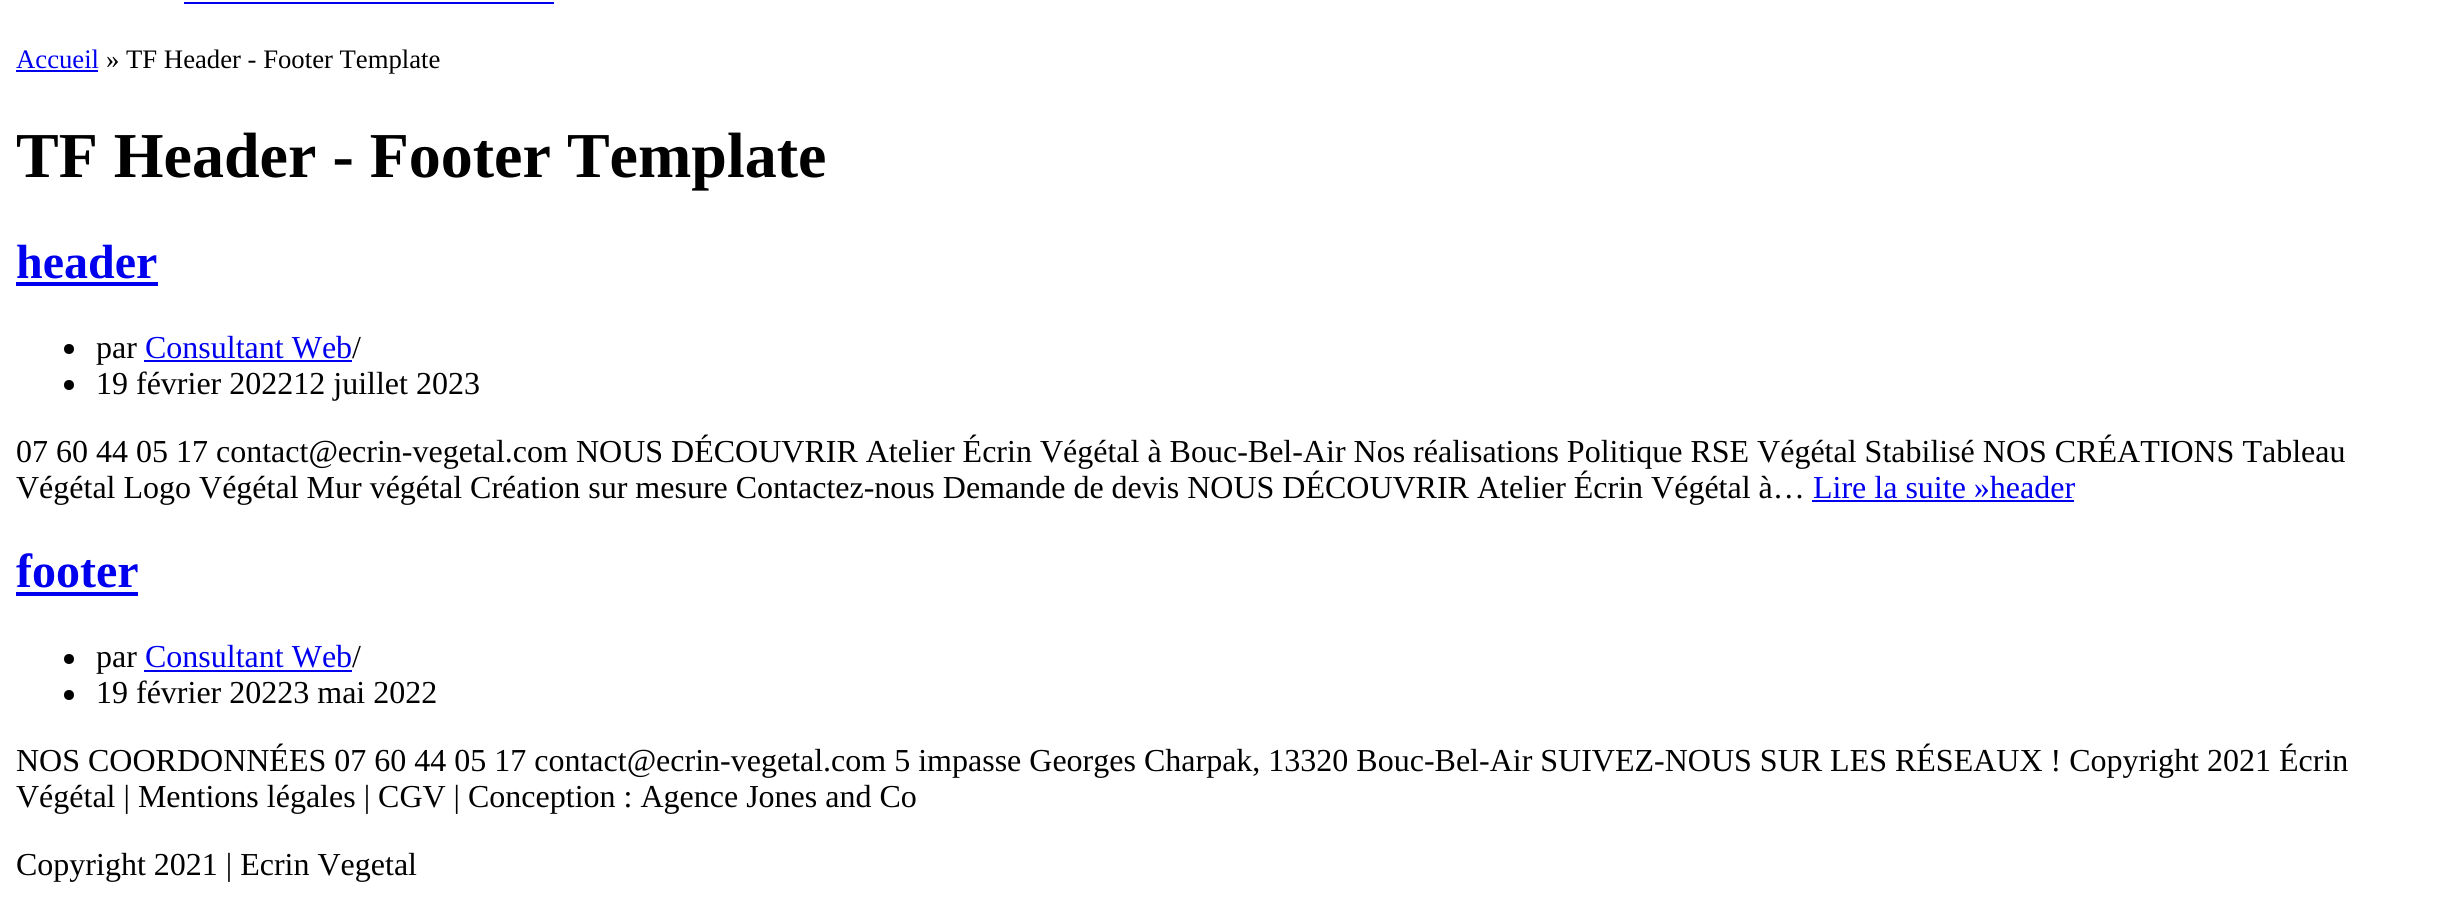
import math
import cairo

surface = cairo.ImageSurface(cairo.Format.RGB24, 2454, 915)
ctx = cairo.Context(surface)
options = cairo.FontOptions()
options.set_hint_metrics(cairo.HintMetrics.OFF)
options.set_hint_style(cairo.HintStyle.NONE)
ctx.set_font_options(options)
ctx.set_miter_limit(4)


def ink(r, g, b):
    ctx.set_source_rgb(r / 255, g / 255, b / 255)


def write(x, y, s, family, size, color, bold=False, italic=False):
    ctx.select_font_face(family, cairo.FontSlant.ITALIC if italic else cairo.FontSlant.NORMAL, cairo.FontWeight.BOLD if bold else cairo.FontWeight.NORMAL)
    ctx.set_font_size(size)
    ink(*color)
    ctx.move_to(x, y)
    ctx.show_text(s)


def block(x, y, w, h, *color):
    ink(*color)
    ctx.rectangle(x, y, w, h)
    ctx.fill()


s1 = dict(family="Liberation Serif", size=26.7, color=(0, 0, 238))
s2 = dict(family="Liberation Serif", size=26.7, color=(0, 0, 0))
s3 = dict(family="Liberation Serif", size=64, color=(0, 0, 0), bold=True)
s4 = dict(family="Liberation Serif", size=48, color=(0, 0, 238), bold=True)
s5 = dict(family="Liberation Serif", size=32, color=(0, 0, 0))
s6 = dict(family="Liberation Serif", size=32, color=(0, 0, 238))

ink(255, 255, 255)
ctx.paint()
block(184, 2, 370, 2, 0, 0, 238)
write(16, 68, "Accueil", **s1)
block(16, 70, 82, 2, 0, 0, 238)
write(106, 68, "» TF Header - Footer Template", **s2)
write(16, 177, "TF Header - Footer Template", **s3)
write(16, 278, "header", **s4)
block(16, 282, 142, 4, 0, 0, 238)
ink(0, 0, 0)
ctx.new_path()
ctx.arc(69, 349, 5, 0, 2 * math.pi)
ctx.fill()
write(96, 358, "par", **s5)
block(144, 360, 208, 2, 0, 0, 238)
write(145, 358, "Consultant Web", **s6)
write(352, 358, "/", **s5)
ctx.new_path()
ctx.arc(69, 385, 5, 0, 2 * math.pi)
ctx.fill()
write(96, 394, "19 février 202212 juillet 2023", **s5)
write(16, 462, "07 60 44 05 17 contact@ecrin-vegetal.com NOUS DÉCOUVRIR Atelier Écrin Végétal à Bouc-Bel-Air Nos réalisations Politique RSE Végétal Stabilisé NOS CRÉATIONS Tableau", **s5)
write(16, 498, "Végétal Logo Végétal Mur végétal Création sur mesure Contactez-nous Demande de devis NOUS DÉCOUVRIR Atelier Écrin Végétal à…", **s5)
write(1813, 498, "Lire la suite »header", **s6)
block(1812, 500, 262, 2, 0, 0, 238)
write(16, 587, "footer", **s4)
block(16, 592, 122, 4, 0, 0, 238)
ink(0, 0, 0)
ctx.new_path()
ctx.arc(69, 659, 5, 0, 2 * math.pi)
ctx.fill()
write(96, 667, "par", **s5)
block(144, 670, 208, 2, 0, 0, 238)
write(145, 667, "Consultant Web", **s6)
write(352, 667, "/", **s5)
ctx.new_path()
ctx.arc(69, 695, 5, 0, 2 * math.pi)
ctx.fill()
write(96, 703, "19 février 20223 mai 2022", **s5)
write(16, 771, "NOS COORDONNÉES 07 60 44 05 17 contact@ecrin-vegetal.com 5 impasse Georges Charpak, 13320 Bouc-Bel-Air SUIVEZ-NOUS SUR LES RÉSEAUX ! Copyright 2021 Écrin", **s5)
write(16, 807, "Végétal | Mentions légales | CGV | Conception : Agence Jones and Co", **s5)
write(16, 875, "Copyright 2021 | Ecrin Vegetal", **s5)
surface.write_to_png("screenshot.png")
